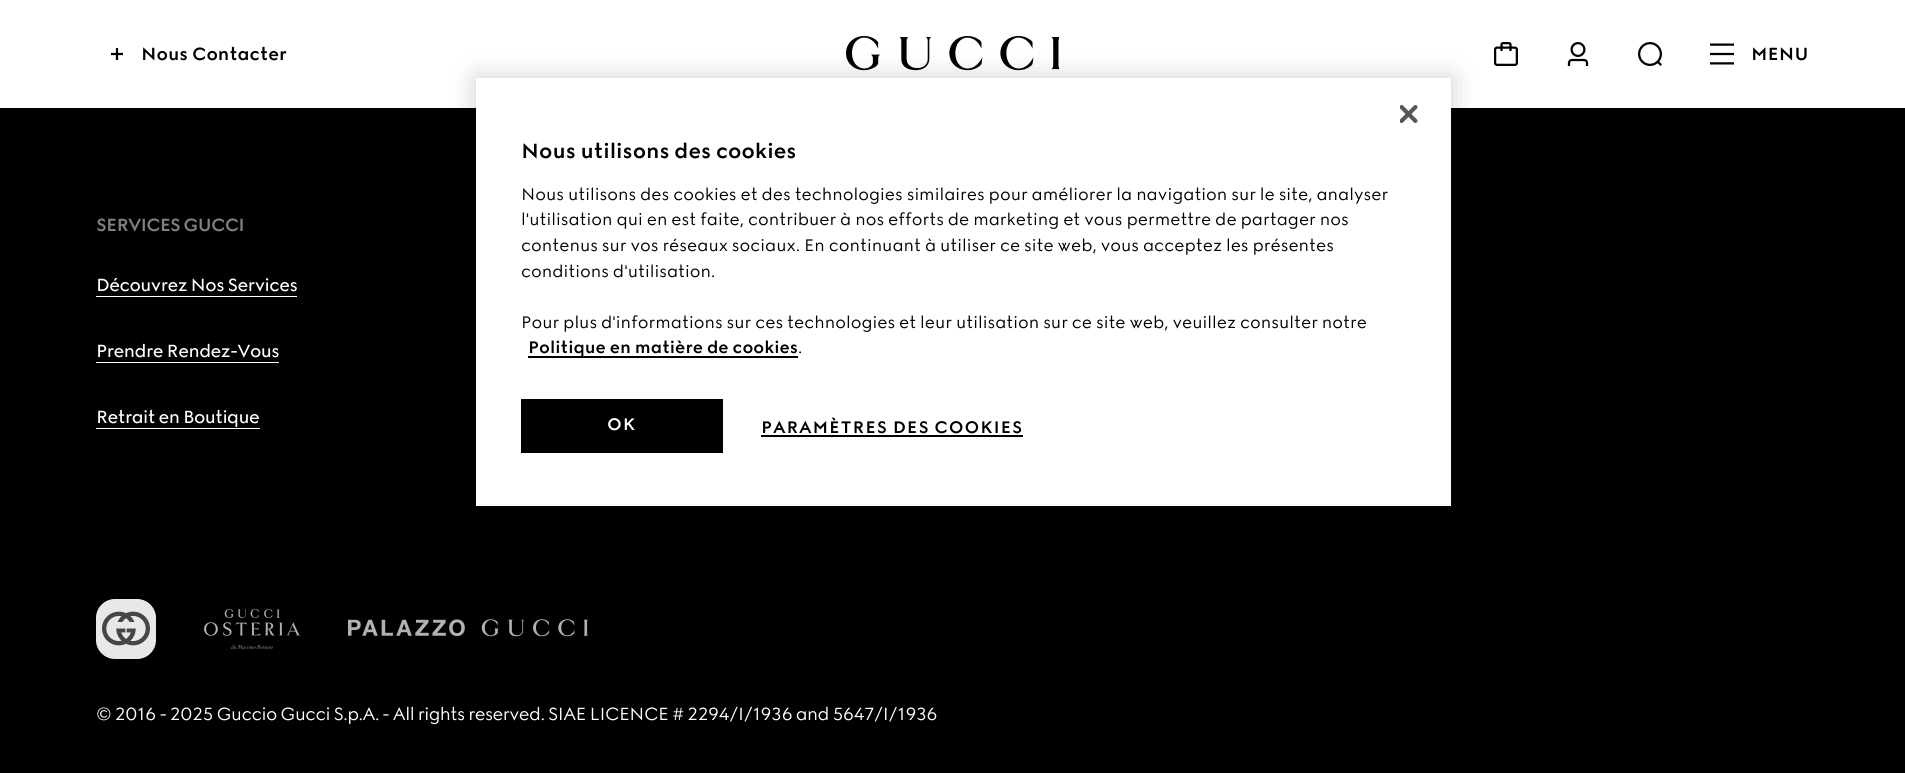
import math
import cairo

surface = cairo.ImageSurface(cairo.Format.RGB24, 1905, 773)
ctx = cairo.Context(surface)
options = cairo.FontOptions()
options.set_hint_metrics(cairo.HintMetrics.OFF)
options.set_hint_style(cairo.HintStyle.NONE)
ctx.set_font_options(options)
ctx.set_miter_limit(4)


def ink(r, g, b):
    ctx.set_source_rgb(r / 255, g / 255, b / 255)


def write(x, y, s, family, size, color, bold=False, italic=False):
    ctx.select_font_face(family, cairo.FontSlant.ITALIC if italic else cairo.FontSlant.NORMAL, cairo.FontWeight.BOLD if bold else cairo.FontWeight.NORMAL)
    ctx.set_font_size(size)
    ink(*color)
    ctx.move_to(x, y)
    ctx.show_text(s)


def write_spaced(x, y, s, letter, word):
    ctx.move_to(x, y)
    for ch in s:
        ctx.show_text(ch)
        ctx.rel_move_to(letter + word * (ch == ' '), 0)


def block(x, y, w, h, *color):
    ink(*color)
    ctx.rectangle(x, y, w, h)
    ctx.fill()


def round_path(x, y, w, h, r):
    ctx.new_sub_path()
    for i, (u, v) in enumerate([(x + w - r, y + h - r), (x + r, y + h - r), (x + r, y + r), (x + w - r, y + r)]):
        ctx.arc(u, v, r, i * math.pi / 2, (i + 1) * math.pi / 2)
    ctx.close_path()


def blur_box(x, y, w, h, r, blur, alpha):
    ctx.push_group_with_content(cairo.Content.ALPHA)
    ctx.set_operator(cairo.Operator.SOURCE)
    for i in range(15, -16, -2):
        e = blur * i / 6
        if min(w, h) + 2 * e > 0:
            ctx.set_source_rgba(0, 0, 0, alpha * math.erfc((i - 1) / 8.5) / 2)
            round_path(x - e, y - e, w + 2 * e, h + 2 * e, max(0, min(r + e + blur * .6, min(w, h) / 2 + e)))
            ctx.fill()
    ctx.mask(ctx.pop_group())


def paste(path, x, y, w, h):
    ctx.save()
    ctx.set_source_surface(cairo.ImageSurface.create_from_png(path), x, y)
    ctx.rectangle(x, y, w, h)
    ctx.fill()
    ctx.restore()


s1 = dict(family="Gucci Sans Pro", size=18, color=(0, 0, 0), bold=True)
s2 = dict(family="Gucci Sans Pro", size=21, color=(0, 0, 0), bold=True)
s3 = dict(family="Gucci Sans Pro", size=17.07, color=(0, 0, 0))
s4 = dict(family="Gucci Sans Pro", size=17.07, color=(0, 0, 0), bold=True)

ink(0, 0, 0)
ctx.paint()
block(0, 0, 1905, 108, 255, 255, 255)
paste("pic1.png", 846, 36, 213, 35)
paste("pic2.png", 111, 48, 12, 12)
write(141, 60, "Nous Contacter", **s1)
paste("pic3.png", 1494, 42, 24, 24)
paste("pic4.png", 1567, 42, 22, 24)
paste("pic5.png", 1638, 42, 24, 24)
paste("pic6.png", 1710, 43, 24, 22)
write(1751, 60, "MENU", **s1)
ink(128, 128, 128)
write_spaced(96, 231, "SERVICES GUCCI", -0.9, 0)
ctx.select_font_face("Gucci Sans Pro Medium")
ink(255, 255, 255)
write_spaced(96, 291, "Découvrez Nos Services", -0.55, 0)
block(96, 296, 201, 1, 255, 255, 255)
write_spaced(96, 357, "Prendre Rendez-Vous", -0.55, 0)
block(96, 362, 183, 1, 255, 255, 255)
write_spaced(96, 423, "Retrait en Boutique", -0.55, 0)
block(96, 428, 164, 1, 255, 255, 255)
paste("pic7.png", 96, 599, 60, 60)
paste("pic8.png", 204, 609, 96, 40)
paste("pic9.png", 348, 619, 240, 18)
ctx.select_font_face("Gucci Sans Pro")
write_spaced(96, 720, "© 2016 - 2025 Guccio Gucci S.p.A. - All rights reserved. SIAE LICENCE # 2294/I/1936 and 5647/I/1936", -0.55, 0)
ink(0, 0, 0)
blur_box(476, 78, 975, 428, 0, 13.5, 0.2)
block(476, 78, 975, 428, 255, 255, 255)
paste("pic10.png", 1400, 105, 18, 18)
write(521, 158, "Nous utilisons des cookies", **s2)
write(521, 200, "Nous utilisons des cookies et des technologies similaires pour améliorer la navigation sur le site, analyser", **s3)
write(521, 225, "l'utilisation qui en est faite, contribuer à nos efforts de marketing et vous permettre de partager nos", **s3)
write(521, 251, "contenus sur vos réseaux sociaux. En continuant à utiliser ce site web, vous acceptez les présentes", **s3)
write(521, 277, "conditions d'utilisation.", **s3)
write(521, 328, "Pour plus d'informations sur ces technologies et leur utilisation sur ce site web, veuillez consulter notre", **s3)
block(528, 356, 270, 2, 0, 0, 0)
write(528, 353, "Politique en matière de cookies", **s4)
write(798, 353, ".", **s3)
block(521, 399, 202, 54, 0, 0, 0)
ctx.select_font_face("Gucci Sans Pro", cairo.FontSlant.NORMAL, cairo.FontWeight.BOLD)
ink(255, 255, 255)
write_spaced(607, 430, "OK", 0.85, 0)
ink(0, 0, 0)
write_spaced(761, 433, "PARAMÈTRES DES COOKIES", 0.85, 0)
block(761, 435, 262, 2, 0, 0, 0)
surface.write_to_png("screenshot.png")
